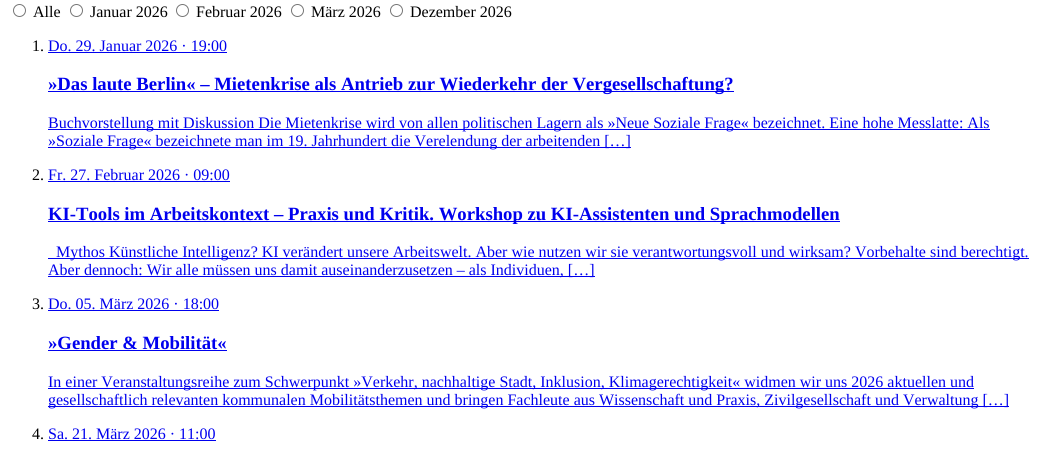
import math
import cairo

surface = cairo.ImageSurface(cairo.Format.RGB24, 1045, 453)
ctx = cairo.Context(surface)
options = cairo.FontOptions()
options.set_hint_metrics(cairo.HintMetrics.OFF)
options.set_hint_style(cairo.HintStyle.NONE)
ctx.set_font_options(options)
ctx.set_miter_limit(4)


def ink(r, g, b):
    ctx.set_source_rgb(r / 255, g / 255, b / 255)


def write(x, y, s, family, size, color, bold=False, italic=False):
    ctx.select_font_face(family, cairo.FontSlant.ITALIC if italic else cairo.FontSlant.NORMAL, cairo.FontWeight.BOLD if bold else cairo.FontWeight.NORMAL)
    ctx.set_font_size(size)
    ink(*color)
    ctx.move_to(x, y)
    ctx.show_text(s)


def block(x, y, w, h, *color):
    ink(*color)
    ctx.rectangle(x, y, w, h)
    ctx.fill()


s1 = dict(family="Liberation Serif", size=16, color=(0, 0, 0))
s2 = dict(family="Liberation Serif", size=16, color=(0, 0, 238))
s3 = dict(family="Liberation Serif", size=18.7, color=(0, 0, 238), bold=True)

ink(255, 255, 255)
ctx.paint()
ctx.arc(19.5, 10.5, 6, 0, 2 * math.pi)
ink(118, 118, 118)
ctx.set_line_width(1)
ctx.stroke()
write(33, 17, "Alle", **s1)
ctx.new_path()
ctx.arc(76.5, 10.5, 6, 0, 2 * math.pi)
ink(118, 118, 118)
ctx.stroke()
write(90, 17, "Januar 2026", **s1)
ctx.new_path()
ctx.arc(182.5, 10.5, 6, 0, 2 * math.pi)
ink(118, 118, 118)
ctx.stroke()
write(196, 17, "Februar 2026", **s1)
ctx.new_path()
ctx.arc(297.5, 10.5, 6, 0, 2 * math.pi)
ink(118, 118, 118)
ctx.stroke()
write(311, 17, "März 2026", **s1)
ctx.new_path()
ctx.arc(396.5, 10.5, 6, 0, 2 * math.pi)
ink(118, 118, 118)
ctx.stroke()
write(410, 17, "Dezember 2026", **s1)
write(32, 51, "1.", **s1)
write(48, 51, "Do. 29. Januar 2026 · 19:00", **s2)
block(48, 52, 179, 1, 0, 0, 238)
block(48, 91, 686, 1, 0, 0, 238)
write(48, 90, "»Das laute Berlin« – Mietenkrise als Antrieb zur Wiederkehr der Vergesellschaftung?", **s3)
block(48, 129, 942, 1, 0, 0, 238)
write(48, 128, "Buchvorstellung mit Diskussion Die Mietenkrise wird von allen politischen Lagern als »Neue Soziale Frage« bezeichnet. Eine hohe Messlatte: Als", **s2)
block(48, 147, 583, 1, 0, 0, 238)
write(48, 146, "»Soziale Frage« bezeichnete man im 19. Jahrhundert die Verelendung der arbeitenden […]", **s2)
write(32, 180, "2.", **s1)
write(48, 180, "Fr. 27. Februar 2026 · 09:00", **s2)
block(48, 181, 182, 1, 0, 0, 238)
block(48, 221, 792, 1, 0, 0, 238)
write(48, 220, "KI-Tools im Arbeitskontext – Praxis und Kritik. Workshop zu KI-Assistenten und Sprachmodellen", **s3)
block(48, 258, 981, 1, 0, 0, 238)
write(56, 257, "Mythos Künstliche Intelligenz? KI verändert unsere Arbeitswelt. Aber wie nutzen wir sie verantwortungsvoll und wirksam? Vorbehalte sind berechtigt.", **s2)
block(48, 276, 547, 1, 0, 0, 238)
write(48, 275, "Aber dennoch: Wir alle müssen uns damit auseinanderzusetzen – als Individuen, […]", **s2)
write(32, 309, "3.", **s1)
write(48, 309, "Do. 05. März 2026 · 18:00", **s2)
block(48, 310, 171, 1, 0, 0, 238)
write(48, 349, "»Gender & Mobilität«", **s3)
block(48, 350, 179, 1, 0, 0, 238)
block(48, 388, 926, 1, 0, 0, 238)
write(48, 387, "In einer Veranstaltungsreihe zum Schwerpunkt »Verkehr, nachhaltige Stadt, Inklusion, Klimagerechtigkeit« widmen wir uns 2026 aktuellen und", **s2)
block(48, 406, 961, 1, 0, 0, 238)
write(48, 405, "gesellschaftlich relevanten kommunalen Mobilitätsthemen und bringen Fachleute aus Wissenschaft und Praxis, Zivilgesellschaft und Verwaltung […]", **s2)
write(32, 439, "4.", **s1)
write(48, 439, "Sa. 21. März 2026 · 11:00", **s2)
block(48, 440, 168, 1, 0, 0, 238)
surface.write_to_png("screenshot.png")
